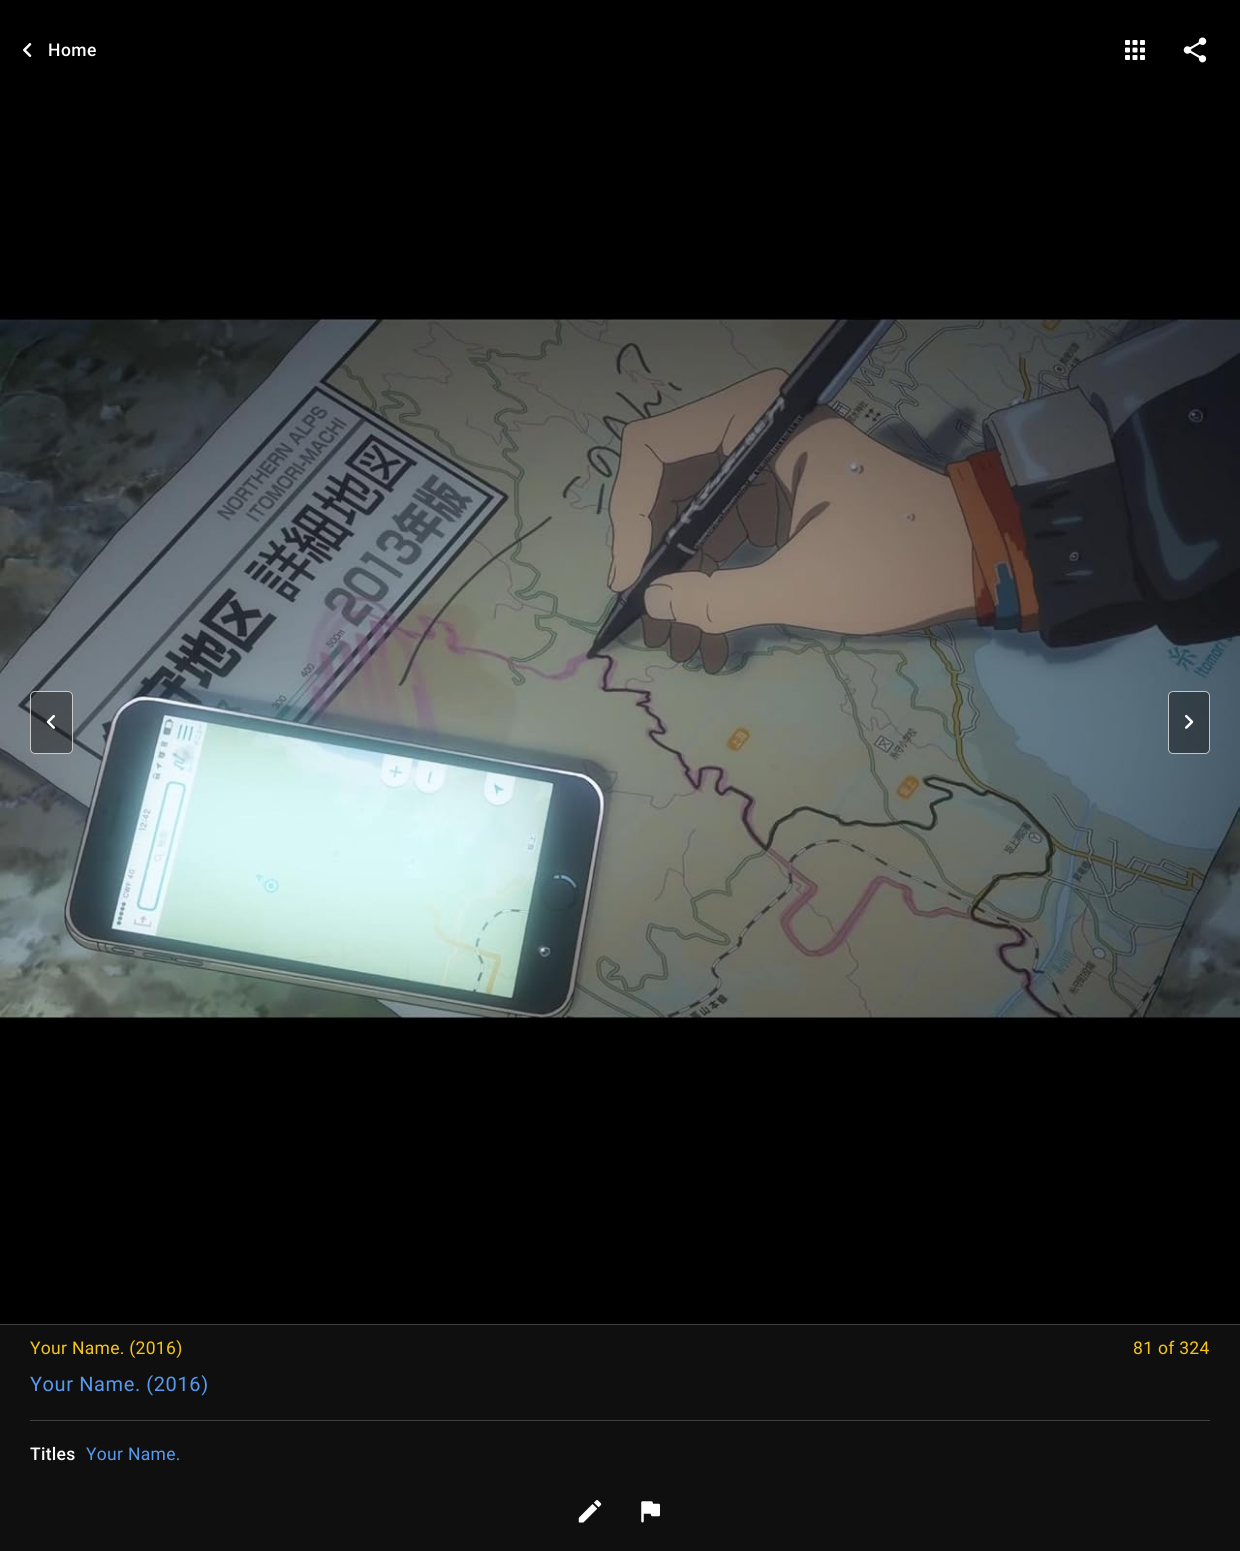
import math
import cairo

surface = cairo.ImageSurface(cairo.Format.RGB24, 1240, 1551)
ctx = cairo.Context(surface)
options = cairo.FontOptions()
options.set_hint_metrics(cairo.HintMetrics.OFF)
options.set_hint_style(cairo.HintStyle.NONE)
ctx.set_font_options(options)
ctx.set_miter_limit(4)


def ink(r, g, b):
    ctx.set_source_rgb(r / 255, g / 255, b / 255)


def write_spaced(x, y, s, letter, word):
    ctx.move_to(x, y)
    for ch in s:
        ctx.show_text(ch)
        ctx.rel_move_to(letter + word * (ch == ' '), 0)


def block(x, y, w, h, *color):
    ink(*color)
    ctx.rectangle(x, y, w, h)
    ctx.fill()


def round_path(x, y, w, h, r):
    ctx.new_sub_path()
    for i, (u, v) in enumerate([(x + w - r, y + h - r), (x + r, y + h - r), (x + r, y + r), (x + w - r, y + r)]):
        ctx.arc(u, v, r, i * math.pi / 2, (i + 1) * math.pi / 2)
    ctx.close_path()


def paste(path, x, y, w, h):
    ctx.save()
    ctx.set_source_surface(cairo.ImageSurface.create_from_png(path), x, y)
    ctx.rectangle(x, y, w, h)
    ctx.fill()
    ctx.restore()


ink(0, 0, 0)
ctx.paint()
paste("pic1.png", 23, 43, 9, 14)
ctx.select_font_face("Roboto Medium")
ctx.set_font_size(17.5)
ink(255, 255, 255)
write_spaced(48, 56, "Home", 0.5, 0)
paste("pic2.png", 1125, 40, 20, 20)
paste("pic3.png", 1183, 37, 24, 26)
paste("pic4.png", 0, 314, 1240, 708)
ctx.set_source_rgba(0.071, 0.071, 0.071, 0.45)
round_path(30, 691, 43, 63, 5)
ctx.fill()
round_path(30.5, 691.5, 42, 62, 4.5)
ctx.set_source_rgba(1, 1, 1, 0.7)
ctx.set_line_width(1)
ctx.stroke()
paste("pic5.png", 46, 714, 9, 15)
ctx.set_source_rgba(0.071, 0.071, 0.071, 0.45)
round_path(1168, 691, 42, 63, 5)
ctx.fill()
round_path(1168.5, 691.5, 41, 62, 4.5)
ctx.set_source_rgba(1, 1, 1, 0.7)
ctx.stroke()
paste("pic6.png", 1185, 714, 9, 15)
block(0, 1325, 1240, 226, 15, 15, 15)
block(0, 1324, 1240, 1, 63, 63, 63)
ctx.select_font_face("Roboto")
ink(245, 197, 24)
write_spaced(30, 1354, "Your Name. (2016)", 0.3, 0)
write_spaced(1133, 1354, "81 of 324", 0.3, 0)
ctx.set_font_size(20)
ink(87, 153, 239)
write_spaced(30, 1391, "Your Name. (2016)", 0.6, 0)
block(30, 1420, 1180, 1, 63, 63, 63)
ctx.select_font_face("Roboto Medium")
ctx.set_font_size(17.5)
ink(255, 255, 255)
write_spaced(30, 1460, "Titles", 0.3, 0)
ctx.select_font_face("Roboto")
ink(87, 153, 239)
write_spaced(86, 1460, "Your Name.", 0.3, 0)
paste("pic7.png", 578, 1500, 24, 23)
paste("pic8.png", 641, 1501, 19, 22)
surface.write_to_png("screenshot.png")
